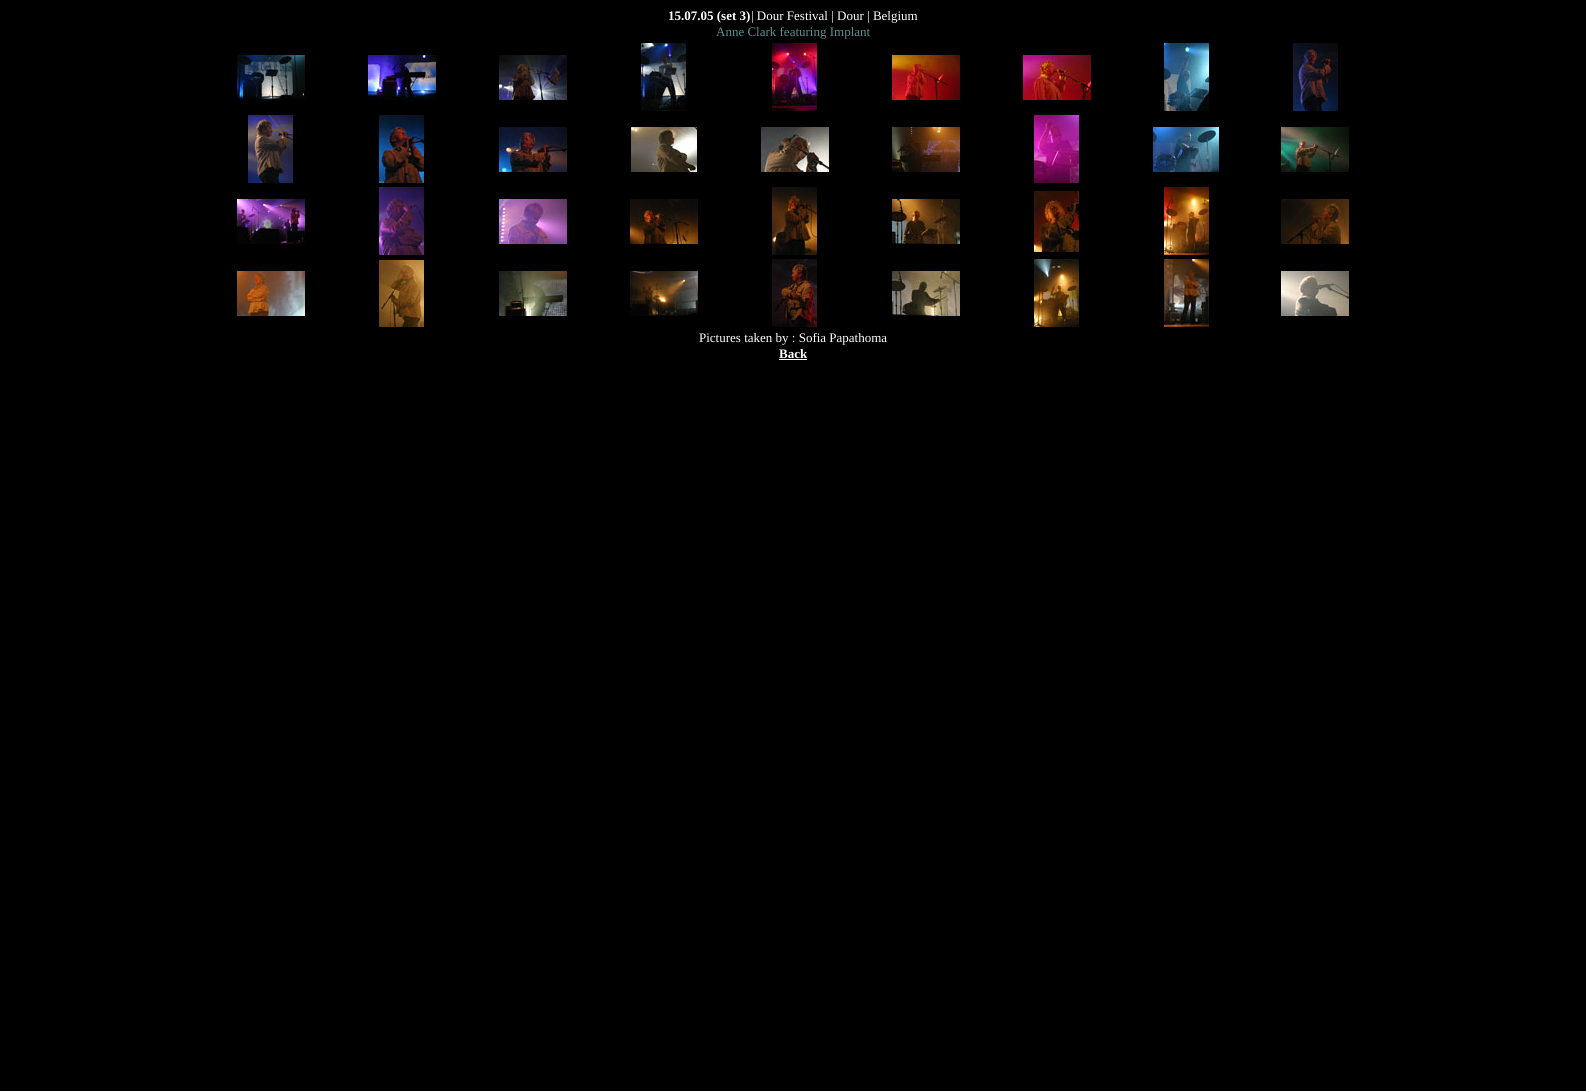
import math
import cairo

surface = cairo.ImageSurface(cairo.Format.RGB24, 1586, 1091)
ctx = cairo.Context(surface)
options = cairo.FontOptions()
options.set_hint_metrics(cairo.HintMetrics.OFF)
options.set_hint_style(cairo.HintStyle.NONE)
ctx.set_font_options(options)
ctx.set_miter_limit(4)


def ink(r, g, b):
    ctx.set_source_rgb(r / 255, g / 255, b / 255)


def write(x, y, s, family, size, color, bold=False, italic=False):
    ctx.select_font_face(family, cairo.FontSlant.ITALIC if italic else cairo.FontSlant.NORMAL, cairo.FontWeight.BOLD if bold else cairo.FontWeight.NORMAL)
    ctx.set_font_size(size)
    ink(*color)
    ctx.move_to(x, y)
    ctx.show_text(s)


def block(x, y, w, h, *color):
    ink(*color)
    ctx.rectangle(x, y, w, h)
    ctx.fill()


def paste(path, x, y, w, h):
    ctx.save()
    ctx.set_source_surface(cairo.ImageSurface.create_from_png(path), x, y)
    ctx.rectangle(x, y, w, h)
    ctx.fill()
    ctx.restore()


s1 = dict(family="Liberation Serif", size=13, color=(255, 255, 255), bold=True)
s2 = dict(family="Liberation Serif", size=13, color=(255, 255, 255))
s3 = dict(family="Liberation Serif", size=13, color=(88, 146, 146))

ink(0, 0, 0)
ctx.paint()
write(668, 20, "15.07.05 (set 3)", **s1)
write(751, 20, "| Dour Festival | Dour | Belgium", **s2)
write(716, 36, "Anne Clark featuring Implant", **s3)
paste("pic1.png", 237, 55, 68, 45)
paste("pic2.png", 368, 55, 68, 45)
paste("pic3.png", 499, 55, 68, 45)
paste("pic4.png", 641, 43, 45, 68)
paste("pic5.png", 772, 43, 45, 68)
paste("pic6.png", 892, 55, 68, 45)
paste("pic7.png", 1023, 55, 68, 45)
paste("pic8.png", 1164, 43, 45, 68)
paste("pic9.png", 1293, 43, 45, 68)
paste("pic10.png", 248, 115, 45, 68)
paste("pic11.png", 379, 115, 45, 68)
paste("pic12.png", 499, 127, 68, 45)
paste("pic13.png", 631, 127, 66, 45)
paste("pic14.png", 761, 127, 68, 45)
paste("pic15.png", 892, 127, 68, 45)
paste("pic16.png", 1034, 115, 45, 68)
paste("pic17.png", 1153, 127, 66, 45)
paste("pic18.png", 1281, 127, 68, 45)
paste("pic19.png", 237, 199, 68, 45)
paste("pic20.png", 379, 187, 45, 68)
paste("pic21.png", 499, 199, 68, 45)
paste("pic22.png", 630, 199, 68, 45)
paste("pic23.png", 772, 187, 45, 68)
paste("pic24.png", 892, 199, 68, 45)
paste("pic25.png", 1034, 191, 45, 61)
paste("pic26.png", 1164, 187, 45, 68)
paste("pic27.png", 1281, 199, 68, 45)
paste("pic28.png", 237, 271, 68, 45)
paste("pic29.png", 379, 260, 45, 67)
paste("pic30.png", 499, 271, 68, 45)
paste("pic31.png", 630, 271, 68, 45)
paste("pic32.png", 772, 259, 45, 68)
paste("pic33.png", 892, 271, 68, 45)
paste("pic34.png", 1034, 259, 45, 68)
paste("pic35.png", 1164, 259, 45, 68)
paste("pic36.png", 1281, 271, 68, 45)
write(699, 342, "Pictures taken by : Sofia Papathoma", **s2)
write(779, 358, "Back", **s1)
block(779, 359, 28, 1, 255, 255, 255)
surface.write_to_png("screenshot.png")
